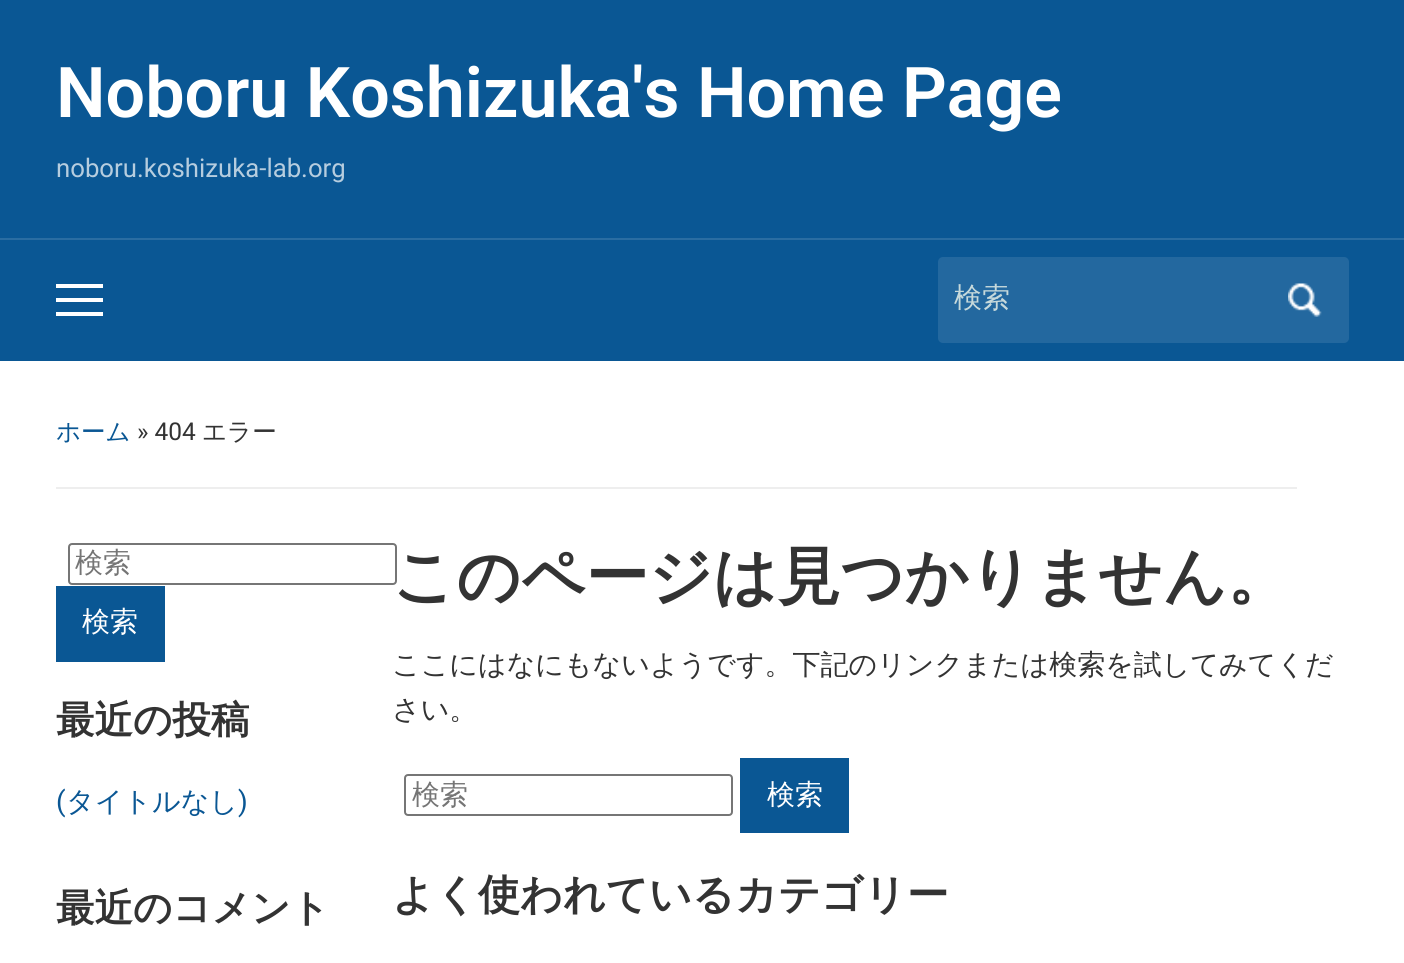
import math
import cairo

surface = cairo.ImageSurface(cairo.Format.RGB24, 1404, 963)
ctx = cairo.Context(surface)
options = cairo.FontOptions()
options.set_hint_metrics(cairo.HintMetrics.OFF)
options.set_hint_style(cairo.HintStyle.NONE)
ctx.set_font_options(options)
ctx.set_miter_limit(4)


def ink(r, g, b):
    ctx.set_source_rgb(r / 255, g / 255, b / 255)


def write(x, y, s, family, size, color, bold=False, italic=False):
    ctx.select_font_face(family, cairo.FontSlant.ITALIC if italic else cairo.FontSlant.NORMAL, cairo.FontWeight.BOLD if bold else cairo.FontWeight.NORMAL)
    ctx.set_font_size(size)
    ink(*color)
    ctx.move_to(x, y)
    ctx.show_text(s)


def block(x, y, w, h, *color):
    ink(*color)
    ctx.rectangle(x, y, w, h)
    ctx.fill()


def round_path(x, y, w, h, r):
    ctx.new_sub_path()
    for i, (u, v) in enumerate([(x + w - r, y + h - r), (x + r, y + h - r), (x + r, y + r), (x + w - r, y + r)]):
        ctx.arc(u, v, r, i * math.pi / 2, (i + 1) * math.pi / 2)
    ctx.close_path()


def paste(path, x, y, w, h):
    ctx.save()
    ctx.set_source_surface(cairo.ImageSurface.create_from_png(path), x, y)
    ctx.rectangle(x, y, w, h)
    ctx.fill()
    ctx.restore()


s1 = dict(family="Roboto SemiBold", size=70, color=(255, 255, 255))
s2 = dict(family="Roboto", size=25.75, color=(182, 205, 223))
s3 = dict(family="WenQuanYi Zen Hei Medium", size=28, color=(198, 217, 219))
s4 = dict(family="WenQuanYi Zen Hei Medium", size=24.5, color=(10, 87, 148))
s5 = dict(family="Roboto", size=24.5, color=(51, 51, 51))
s6 = dict(family="WenQuanYi Zen Hei Medium", size=24.5, color=(51, 51, 51))
s7 = dict(family="WenQuanYi Zen Hei Medium", size=28, color=(117, 117, 117))
s8 = dict(family="WenQuanYi Zen Hei Medium", size=28, color=(255, 255, 255))
s9 = dict(family="WenQuanYi Zen Hei", size=38.5, color=(51, 51, 51), bold=True)
s10 = dict(family="Roboto", size=28, color=(10, 87, 148))
s11 = dict(family="WenQuanYi Zen Hei Medium", size=28, color=(10, 87, 148))
s12 = dict(family="WenQuanYi Zen Hei", size=63, color=(51, 51, 51), bold=True)
s13 = dict(family="WenQuanYi Zen Hei Medium", size=28, color=(51, 51, 51))
s14 = dict(family="WenQuanYi Zen Hei", size=42, color=(51, 51, 51), bold=True)

ink(255, 255, 255)
ctx.paint()
block(0, 0, 1404, 361, 10, 87, 148)
write(56, 117, "Noboru Koshizuka's Home Page", **s1)
write(56, 177, "noboru.koshizuka-lab.org", **s2)
block(0, 238, 1404, 2, 42, 109, 162)
block(56, 284, 47, 4, 255, 255, 255)
block(56, 298, 47, 4, 255, 255, 255)
block(56, 312, 47, 4, 255, 255, 255)
ink(35, 104, 159)
round_path(938, 257, 411, 86, 5)
ctx.fill()
write(954, 307, "検索", **s3)
paste("pic1.png", 1288, 283, 34, 34)
block(56, 487, 1241, 2, 238, 238, 238)
write(56, 440, "ホーム", **s4)
write(137, 440, "» 404", **s5)
write(202, 440, "エラー", **s6)
round_path(69, 544, 327, 40, 3)
ink(118, 118, 118)
ctx.stroke()
write(75, 572, "検索", **s7)
block(56, 586, 109, 76, 10, 87, 148)
write(82, 631, "検索", **s8)
write(56, 733, "最近の投稿", **s9)
write(56, 811, "(", **s10)
write(66, 811, "タイトルなし", **s11)
write(238, 811, ")", **s10)
write(56, 921, "最近のコメント", **s9)
write(392, 598, "このページは見つかりません。", **s12)
write(392, 674, "ここにはなにもないようです。下記のリンクまたは検索を試してみてくだ", **s13)
write(392, 719, "さい。", **s13)
round_path(405, 775, 327, 40, 3)
ink(118, 118, 118)
ctx.stroke()
write(412, 804, "検索", **s7)
block(740, 758, 109, 75, 10, 87, 148)
write(767, 804, "検索", **s8)
write(392, 909, "よく使われているカテゴリー", **s14)
surface.write_to_png("screenshot.png")
